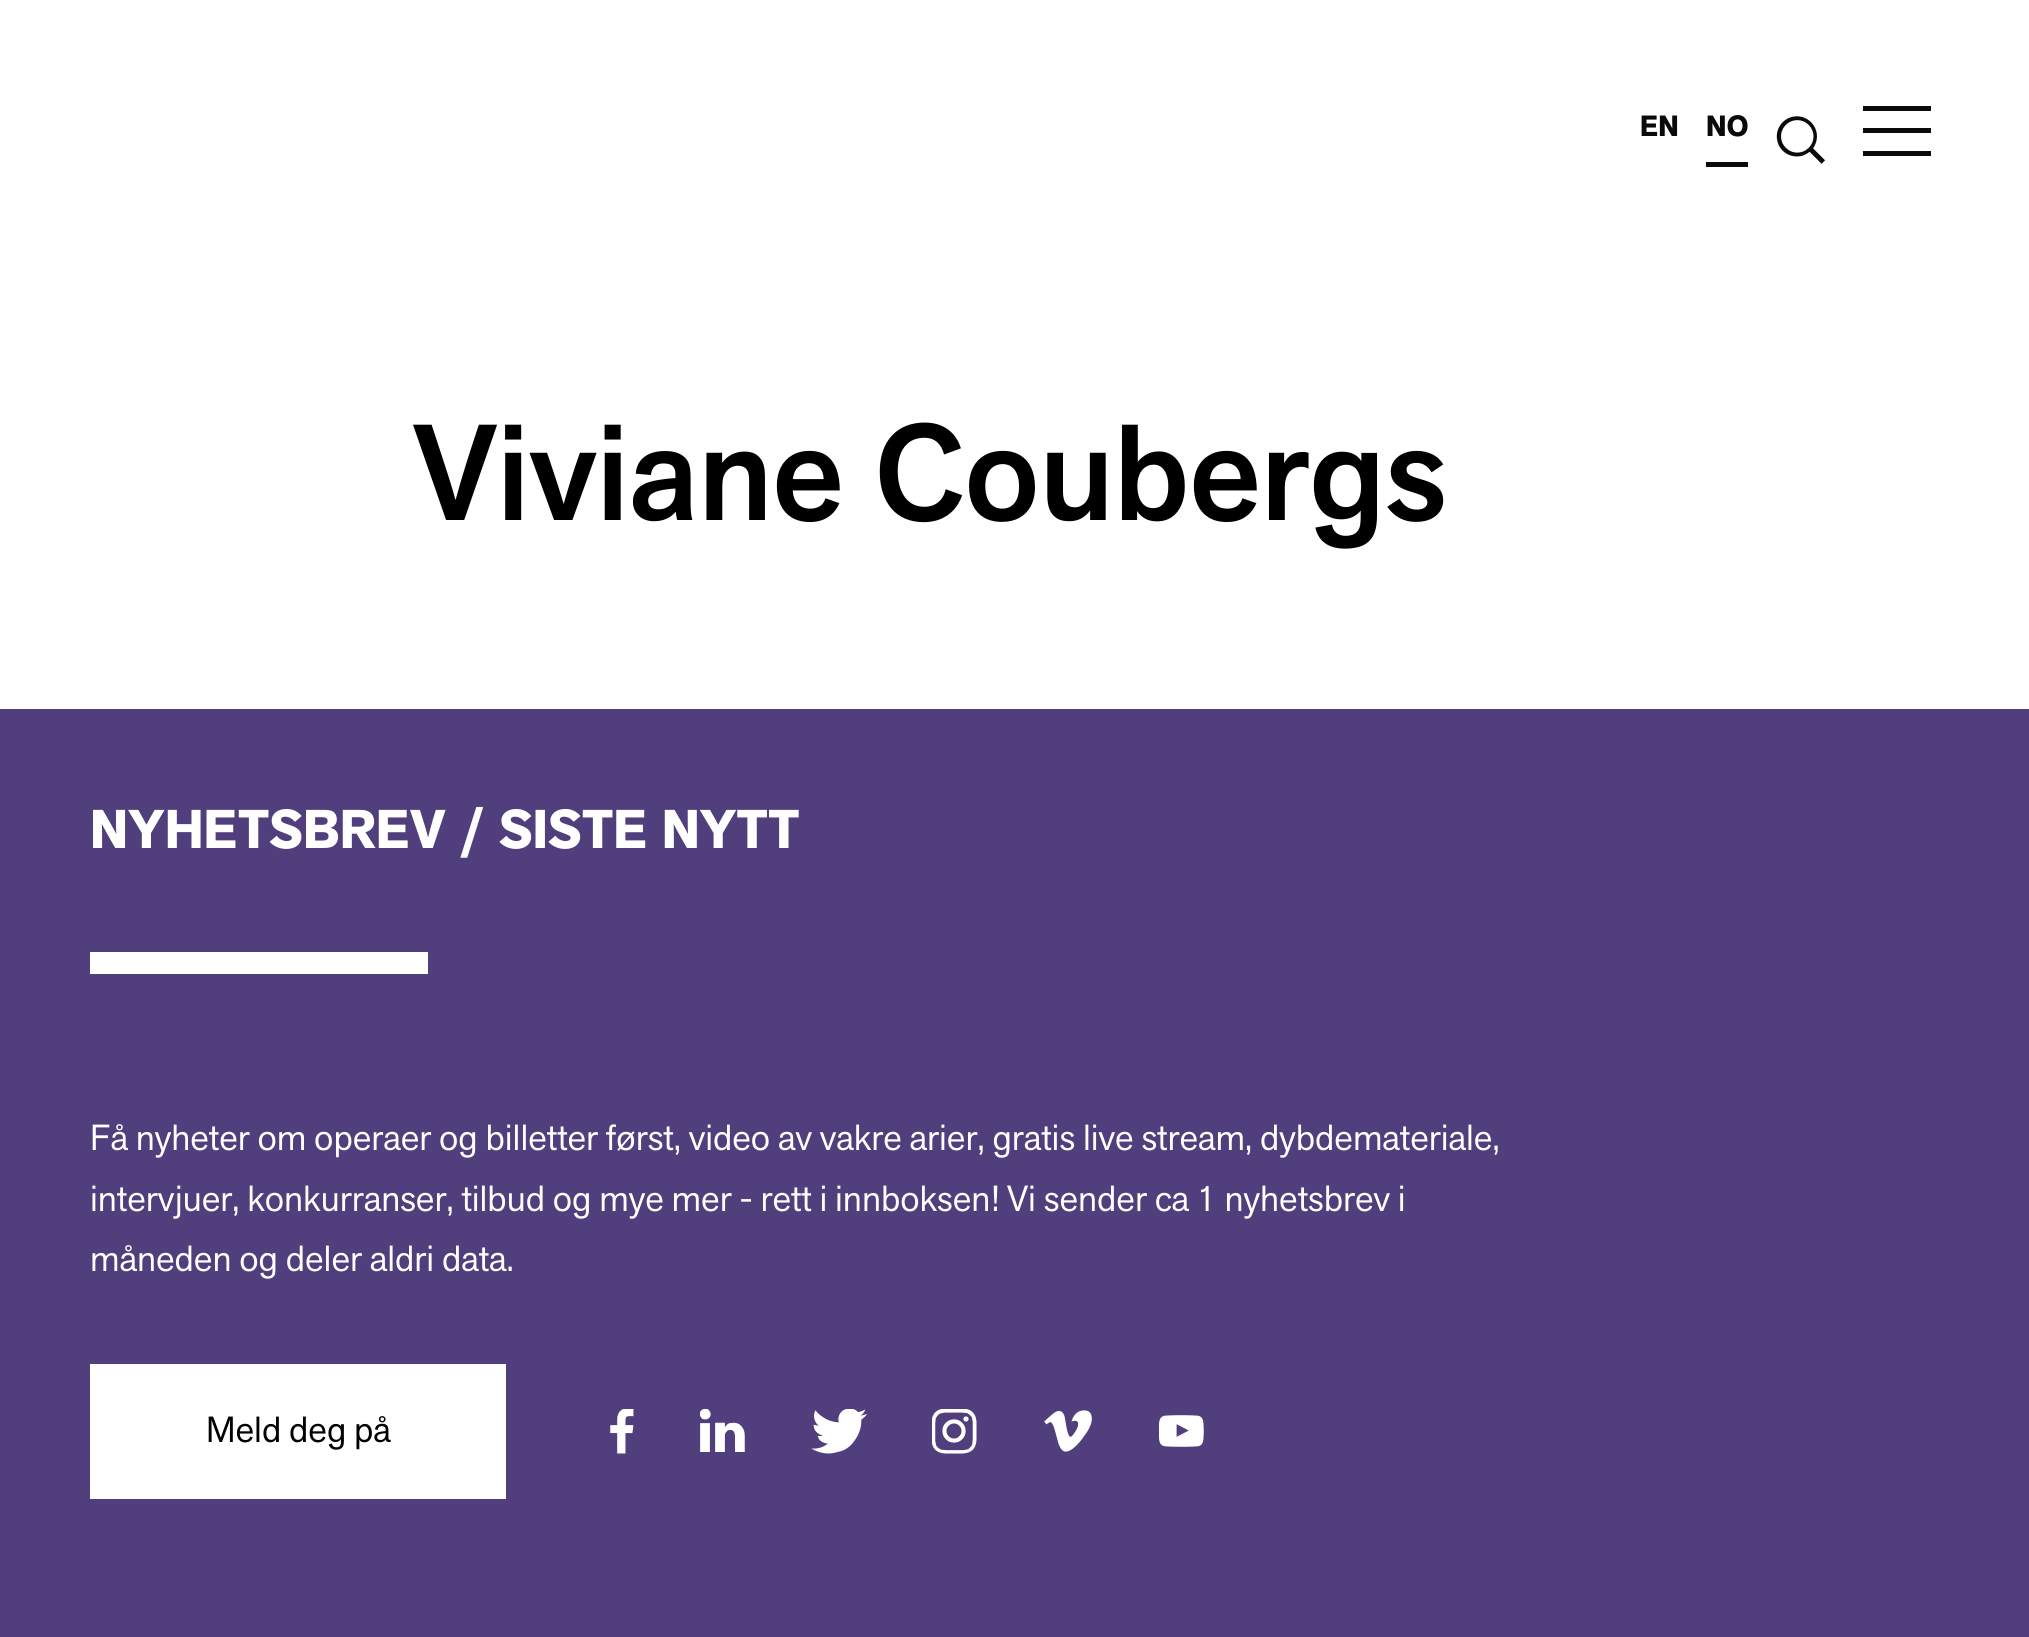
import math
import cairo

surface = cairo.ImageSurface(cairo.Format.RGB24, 2029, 1637)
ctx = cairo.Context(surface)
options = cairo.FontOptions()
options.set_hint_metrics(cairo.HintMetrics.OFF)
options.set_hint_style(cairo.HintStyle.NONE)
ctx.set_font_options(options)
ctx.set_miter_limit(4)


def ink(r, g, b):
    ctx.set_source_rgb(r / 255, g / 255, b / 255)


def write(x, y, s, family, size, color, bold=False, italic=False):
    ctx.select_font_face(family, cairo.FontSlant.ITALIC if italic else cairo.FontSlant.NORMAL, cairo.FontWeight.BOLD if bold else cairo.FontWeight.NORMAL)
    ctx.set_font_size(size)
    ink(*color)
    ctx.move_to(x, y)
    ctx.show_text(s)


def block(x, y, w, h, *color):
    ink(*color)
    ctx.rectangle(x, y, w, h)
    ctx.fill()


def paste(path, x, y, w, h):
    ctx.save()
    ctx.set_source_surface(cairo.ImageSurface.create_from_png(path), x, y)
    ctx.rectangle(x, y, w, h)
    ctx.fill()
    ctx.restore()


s1 = dict(family="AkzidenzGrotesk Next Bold", size=29, color=(10, 10, 10), bold=True)
s2 = dict(family="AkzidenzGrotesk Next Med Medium", size=135, color=(0, 0, 0))
s3 = dict(family="AkzidenzGrotesk Next Bold", size=54, color=(255, 255, 255), bold=True)
s4 = dict(family="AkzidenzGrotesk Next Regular", size=36, color=(255, 255, 255))
s5 = dict(family="AkzidenzGrotesk Next Regular", size=36, color=(0, 0, 0))

ink(255, 255, 255)
ctx.paint()
write(1640, 136, "EN", **s1)
block(1706, 162, 42, 5, 10, 10, 10)
write(1706, 136, "NO", **s1)
paste("pic1.png", 1776, 116, 49, 48)
block(1863, 106, 68, 5, 10, 10, 10)
block(1863, 128, 68, 5, 10, 10, 10)
block(1863, 151, 68, 5, 10, 10, 10)
write(413, 520, "Viviane Coubergs", **s2)
block(0, 709, 2029, 928, 80, 62, 125)
write(90, 848, "NYHETSBREV / SISTE NYTT", **s3)
block(90, 952, 338, 22, 255, 255, 255)
write(90, 1150, "Få nyheter om operaer og billetter først, video av vakre arier, gratis live stream, dybdemateriale,", **s4)
write(90, 1211, "intervjuer, konkurranser, tilbud og mye mer - rett i innboksen! Vi sender ca 1 nyhetsbrev i", **s4)
write(90, 1271, "måneden og deler aldri data.", **s4)
block(90, 1364, 416, 135, 255, 255, 255)
write(206, 1442, "Meld deg på", **s5)
paste("pic2.png", 610, 1409, 24, 45)
paste("pic3.png", 700, 1409, 45, 43)
paste("pic4.png", 811, 1409, 56, 45)
paste("pic5.png", 932, 1409, 45, 45)
paste("pic6.png", 1044, 1410, 48, 42)
paste("pic7.png", 1159, 1415, 45, 32)
surface.write_to_png("screenshot.png")
